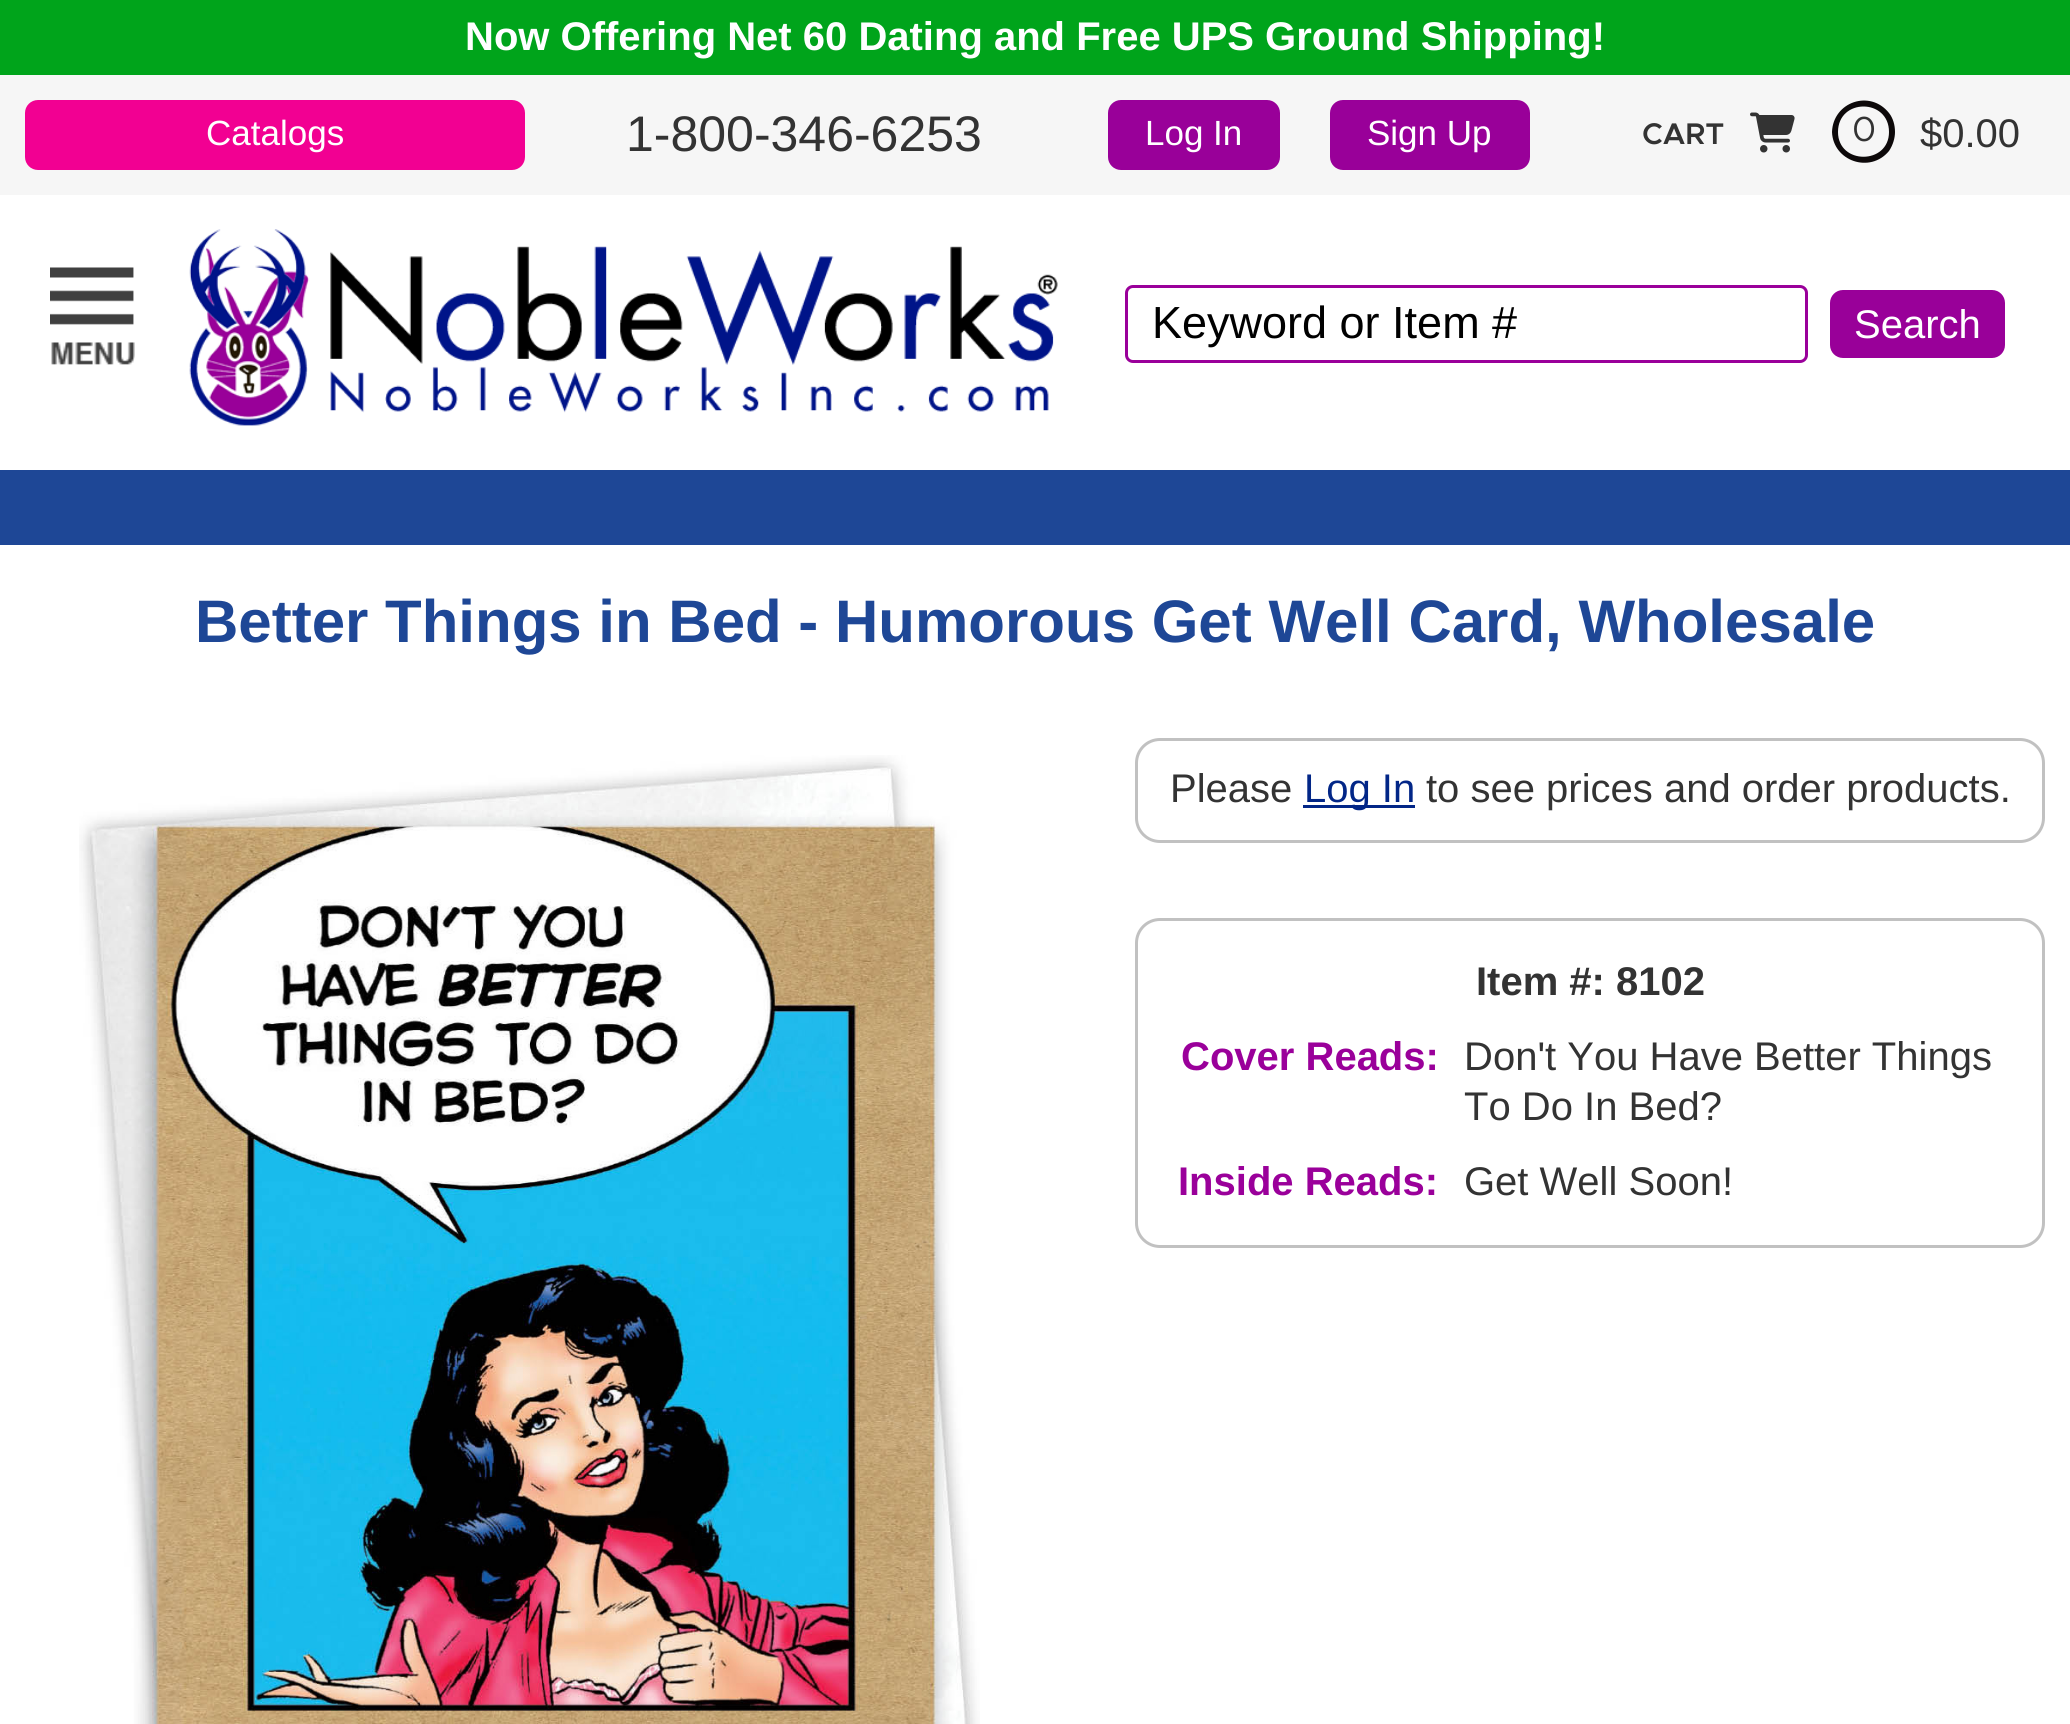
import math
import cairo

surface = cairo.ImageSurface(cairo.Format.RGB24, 2070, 1724)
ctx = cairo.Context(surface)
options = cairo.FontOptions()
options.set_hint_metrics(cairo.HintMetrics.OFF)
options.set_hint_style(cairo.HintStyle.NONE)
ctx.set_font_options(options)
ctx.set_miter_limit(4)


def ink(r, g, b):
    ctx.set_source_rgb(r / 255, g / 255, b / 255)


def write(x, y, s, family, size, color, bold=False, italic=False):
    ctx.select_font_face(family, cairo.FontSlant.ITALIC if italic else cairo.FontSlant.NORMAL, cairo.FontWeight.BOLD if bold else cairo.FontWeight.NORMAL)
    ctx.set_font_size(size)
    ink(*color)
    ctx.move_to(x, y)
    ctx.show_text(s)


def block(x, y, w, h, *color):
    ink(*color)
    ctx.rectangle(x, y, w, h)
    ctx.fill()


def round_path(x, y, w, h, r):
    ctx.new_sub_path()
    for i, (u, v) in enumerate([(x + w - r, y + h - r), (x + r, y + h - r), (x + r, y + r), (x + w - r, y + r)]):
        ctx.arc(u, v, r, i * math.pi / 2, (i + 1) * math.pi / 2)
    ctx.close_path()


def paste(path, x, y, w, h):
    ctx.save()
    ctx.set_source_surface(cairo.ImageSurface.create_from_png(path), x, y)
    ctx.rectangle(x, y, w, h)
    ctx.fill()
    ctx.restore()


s1 = dict(family="Liberation Sans", size=40, color=(255, 255, 255), bold=True)
s2 = dict(family="Liberation Sans", size=35, color=(255, 255, 255))
s3 = dict(family="Liberation Sans", size=50, color=(51, 51, 51))
s4 = dict(family="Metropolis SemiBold", size=30, color=(51, 51, 51))
s5 = dict(family="Metropolis", size=35, color=(51, 51, 51))
s6 = dict(family="Liberation Sans", size=40, color=(51, 51, 51))
s7 = dict(family="Liberation Sans", size=45, color=(0, 0, 0))
s8 = dict(family="Liberation Sans", size=40, color=(255, 255, 255))
s9 = dict(family="Liberation Sans", size=60, color=(30, 71, 150), bold=True)
s10 = dict(family="Liberation Sans", size=40, color=(2, 38, 135))
s11 = dict(family="Liberation Sans", size=40, color=(51, 51, 51), bold=True)
s12 = dict(family="Liberation Sans", size=40, color=(154, 0, 154), bold=True)

ink(255, 255, 255)
ctx.paint()
block(0, 0, 2070, 75, 0, 164, 27)
write(465, 50, "Now Offering Net 60 Dating and Free UPS Ground Shipping!", **s1)
block(0, 75, 2070, 120, 246, 246, 246)
ink(242, 0, 146)
round_path(25, 100, 500, 70, 13)
ctx.fill()
write(206, 145, "Catalogs", **s2)
write(626, 151, "1-800-346-6253", **s3)
ink(153, 0, 153)
round_path(1108, 100, 172, 70, 13)
ctx.fill()
write(1145, 145, "Log In", **s2)
ink(153, 0, 153)
round_path(1330, 100, 200, 70, 13)
ctx.fill()
write(1367, 145, "Sign Up", **s2)
write(1642, 144, "CART", **s4)
paste("pic1.png", 1750, 112, 45, 41)
ink(13, 9, 10)
ctx.new_path()
ctx.move_to(1889, 132)
ctx.curve_to(1889, 98, 1838, 98, 1838, 132)
ctx.curve_to(1838, 165, 1889, 165, 1889, 132)
ctx.close_path()
ctx.move_to(1832, 132)
ctx.curve_to(1833, 102, 1870, 89, 1889, 113)
ctx.curve_to(1893, 118, 1895, 125, 1895, 132)
ctx.curve_to(1895, 138, 1893, 145, 1889, 151)
ctx.curve_to(1870, 174, 1833, 161, 1832, 132)
ctx.close_path()
ctx.fill()
write(1852, 141, "0", **s5)
write(1920, 147, "$0.00", **s6)
paste("pic2.png", 50, 267, 85, 98)
paste("pic3.png", 189, 229, 869, 197)
round_path(1126.5, 286.5, 680, 75, 6.5)
ink(154, 0, 154)
ctx.set_line_width(3)
ctx.stroke()
write(1152, 338, "Keyword or Item #", **s7)
ink(153, 0, 153)
round_path(1830, 290, 175, 68, 13)
ctx.fill()
write(1854, 338, "Search", **s8)
block(0, 470, 2070, 75, 30, 71, 150)
write(195, 642, "Better Things in Bed - Humorous Get Well Card, Wholesale", **s9)
paste("pic4.png", 79, 755, 901, 969)
round_path(1136.5, 739.5, 907, 102, 23.5)
ink(193, 193, 193)
ctx.stroke()
write(1170, 802, "Please", **s6)
block(1303, 805, 112, 3, 2, 38, 135)
write(1304, 802, "Log In", **s10)
write(1426, 802, "to see prices and order products.", **s6)
round_path(1136.5, 919.5, 907, 327, 23.5)
ink(193, 193, 193)
ctx.stroke()
write(1476, 995, "Item #: 8102", **s11)
write(1181, 1070, "Cover Reads:", **s12)
write(1464, 1070, "Don't You Have Better Things", **s6)
write(1464, 1120, "To Do In Bed?", **s6)
write(1178, 1195, "Inside Reads:", **s12)
write(1464, 1195, "Get Well Soon!", **s6)
surface.write_to_png("screenshot.png")
